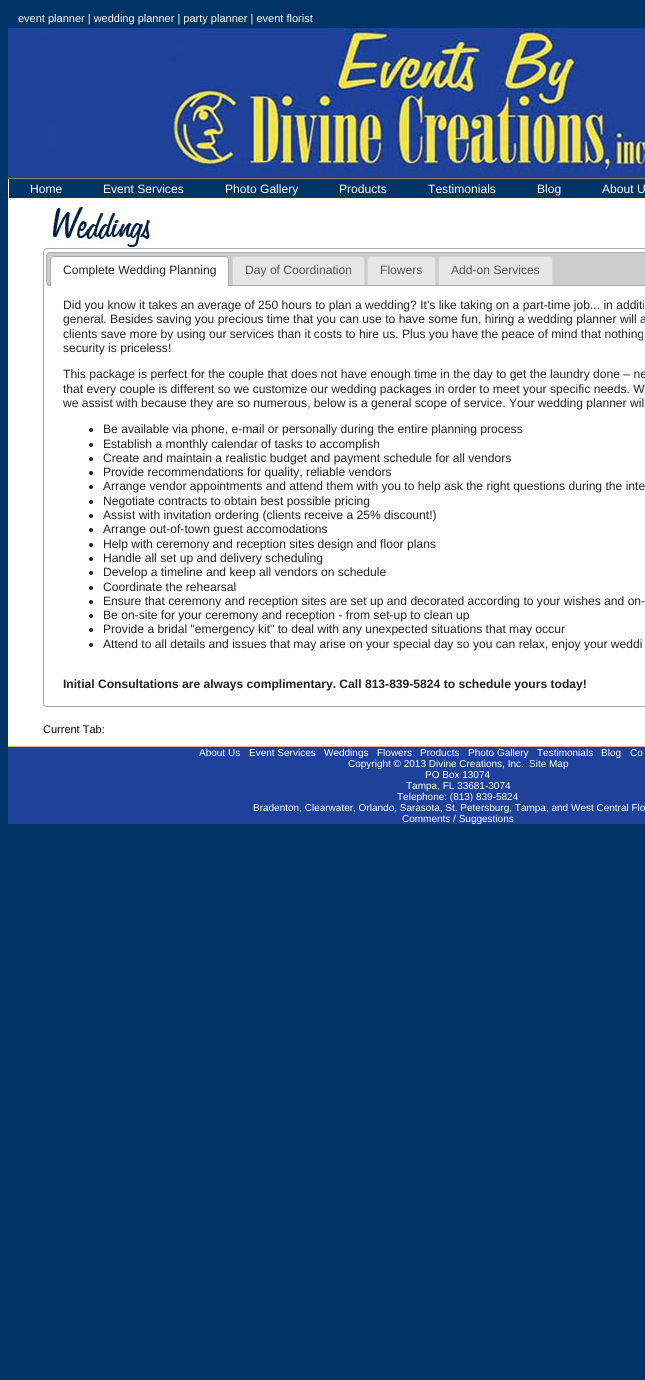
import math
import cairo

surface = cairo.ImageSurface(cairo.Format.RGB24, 645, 1380)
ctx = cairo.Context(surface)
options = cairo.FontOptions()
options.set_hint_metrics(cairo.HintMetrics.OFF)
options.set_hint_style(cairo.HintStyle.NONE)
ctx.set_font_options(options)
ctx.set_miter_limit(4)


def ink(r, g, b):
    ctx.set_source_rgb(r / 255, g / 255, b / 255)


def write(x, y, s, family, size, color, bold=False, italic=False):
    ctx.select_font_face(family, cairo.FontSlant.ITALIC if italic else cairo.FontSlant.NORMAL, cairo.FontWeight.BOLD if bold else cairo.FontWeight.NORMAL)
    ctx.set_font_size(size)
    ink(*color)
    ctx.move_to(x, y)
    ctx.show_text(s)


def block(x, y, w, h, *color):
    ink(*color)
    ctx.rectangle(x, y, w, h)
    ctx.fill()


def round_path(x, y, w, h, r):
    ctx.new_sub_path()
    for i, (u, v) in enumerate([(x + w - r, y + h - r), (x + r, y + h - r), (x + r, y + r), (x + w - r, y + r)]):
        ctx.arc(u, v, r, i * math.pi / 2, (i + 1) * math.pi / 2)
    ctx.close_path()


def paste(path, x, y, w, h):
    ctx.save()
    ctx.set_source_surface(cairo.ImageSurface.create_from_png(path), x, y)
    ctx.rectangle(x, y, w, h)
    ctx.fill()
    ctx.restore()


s1 = dict(family="Liberation Sans", size=11, color=(255, 255, 255))
s2 = dict(family="Liberation Sans", size=12.1, color=(255, 255, 255))
s3 = dict(family="Liberation Sans", size=12.1, color=(34, 34, 34))
s4 = dict(family="Liberation Sans", size=12.1, color=(85, 85, 85))
s5 = dict(family="Liberation Sans", size=12.1, color=(34, 34, 34), bold=True)
s6 = dict(family="Liberation Sans", size=11, color=(0, 0, 0))
s7 = dict(family="Liberation Sans", size=10, color=(255, 255, 255))

ink(0, 51, 102)
ctx.paint()
block(8, 179, 637, 567, 255, 255, 255)
write(18, 22, "event planner | wedding planner | party planner | event florist", **s1)
block(8, 178, 637, 1, 128, 128, 128)
paste("pic1.png", 8, 28, 637, 150)
block(9, 179, 636, 19, 0, 51, 102)
write(30, 193, "Home", **s2)
write(103, 193, "Event Services", **s2)
write(225, 193, "Photo Gallery", **s2)
write(339, 193, "Products", **s2)
write(428, 193, "Testimonials", **s2)
write(537, 193, "Blog", **s2)
write(602, 193, "About U", **s2)
paste("pic2.png", 49, 204, 104, 44)
round_path(43.5, 248.5, 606, 458, 3.5)
ink(170, 170, 170)
ctx.set_line_width(1)
ctx.stroke()
ink(204, 204, 204)
round_path(46.5, 252.5, 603, 33, 3.5)
ctx.fill_preserve()
ink(170, 170, 170)
ctx.stroke()
ink(255, 255, 255)
ctx.new_path()
ctx.move_to(54, 256)
ctx.line_to(225, 256)
ctx.curve_to(227, 256, 229, 258, 229, 260)
ctx.line_to(229, 286)
ctx.line_to(50, 286)
ctx.line_to(50, 260)
ctx.curve_to(50, 258, 52, 256, 54, 256)
ctx.close_path()
ctx.fill()
ink(170, 170, 170)
ctx.set_fill_rule(cairo.FillRule.EVEN_ODD)
ctx.new_path()
ctx.move_to(54, 256)
ctx.line_to(225, 256)
ctx.curve_to(227, 256, 229, 258, 229, 260)
ctx.line_to(229, 286)
ctx.line_to(50, 286)
ctx.line_to(50, 260)
ctx.curve_to(50, 258, 52, 256, 54, 256)
ctx.close_path()
ctx.move_to(54, 257)
ctx.line_to(225, 257)
ctx.curve_to(227, 257, 228, 258, 228, 260)
ctx.line_to(228, 286)
ctx.line_to(51, 286)
ctx.line_to(51, 260)
ctx.curve_to(51, 258, 52, 257, 54, 257)
ctx.close_path()
ctx.fill()
write(63, 274, "Complete Wedding Planning", **s3)
ink(230, 230, 230)
ctx.new_path()
ctx.move_to(236, 256)
ctx.line_to(361, 256)
ctx.curve_to(363, 256, 365, 258, 365, 260)
ctx.line_to(365, 285)
ctx.line_to(232, 285)
ctx.line_to(232, 260)
ctx.curve_to(232, 258, 234, 256, 236, 256)
ctx.close_path()
ctx.fill()
ink(211, 211, 211)
ctx.new_path()
ctx.move_to(236, 256)
ctx.line_to(361, 256)
ctx.curve_to(363, 256, 365, 258, 365, 260)
ctx.line_to(365, 285)
ctx.line_to(232, 285)
ctx.line_to(232, 260)
ctx.curve_to(232, 258, 234, 256, 236, 256)
ctx.close_path()
ctx.move_to(236, 257)
ctx.line_to(361, 257)
ctx.curve_to(363, 257, 364, 258, 364, 260)
ctx.line_to(364, 285)
ctx.line_to(233, 285)
ctx.line_to(233, 260)
ctx.curve_to(233, 258, 234, 257, 236, 257)
ctx.close_path()
ctx.fill()
write(245, 274, "Day of Coordination", **s4)
ink(230, 230, 230)
ctx.new_path()
ctx.move_to(371, 256)
ctx.line_to(432, 256)
ctx.curve_to(434, 256, 436, 258, 436, 260)
ctx.line_to(436, 285)
ctx.line_to(367, 285)
ctx.line_to(367, 260)
ctx.curve_to(367, 258, 369, 256, 371, 256)
ctx.close_path()
ctx.fill()
ink(211, 211, 211)
ctx.new_path()
ctx.move_to(371, 256)
ctx.line_to(432, 256)
ctx.curve_to(434, 256, 436, 258, 436, 260)
ctx.line_to(436, 285)
ctx.line_to(367, 285)
ctx.line_to(367, 260)
ctx.curve_to(367, 258, 369, 256, 371, 256)
ctx.close_path()
ctx.move_to(371, 257)
ctx.line_to(432, 257)
ctx.curve_to(434, 257, 435, 258, 435, 260)
ctx.line_to(435, 285)
ctx.line_to(368, 285)
ctx.line_to(368, 260)
ctx.curve_to(368, 258, 369, 257, 371, 257)
ctx.close_path()
ctx.fill()
write(380, 274, "Flowers", **s4)
ink(230, 230, 230)
ctx.new_path()
ctx.move_to(442, 256)
ctx.line_to(549, 256)
ctx.curve_to(551, 256, 553, 258, 553, 260)
ctx.line_to(553, 285)
ctx.line_to(438, 285)
ctx.line_to(438, 260)
ctx.curve_to(438, 258, 440, 256, 442, 256)
ctx.close_path()
ctx.fill()
ink(211, 211, 211)
ctx.new_path()
ctx.move_to(442, 256)
ctx.line_to(549, 256)
ctx.curve_to(551, 256, 553, 258, 553, 260)
ctx.line_to(553, 285)
ctx.line_to(438, 285)
ctx.line_to(438, 260)
ctx.curve_to(438, 258, 440, 256, 442, 256)
ctx.close_path()
ctx.move_to(442, 257)
ctx.line_to(549, 257)
ctx.curve_to(551, 257, 552, 258, 552, 260)
ctx.line_to(552, 285)
ctx.line_to(439, 285)
ctx.line_to(439, 260)
ctx.curve_to(439, 258, 440, 257, 442, 257)
ctx.close_path()
ctx.fill()
write(451, 274, "Add-on Services", **s4)
write(63, 309, "Did you know it takes an average of 250 hours to plan a wedding? It's like taking on a part-time job... in additi", **s3)
write(63, 323, "general. Besides saving you precious time that you can use to have some fun, hiring a wedding planner will a", **s3)
write(63, 338, "clients save more by using our services than it costs to hire us. Plus you have the peace of mind that nothing", **s3)
write(63, 352, "security is priceless!", **s3)
write(63, 378, "This package is perfect for the couple that does not have enough time in the day to get the laundry done – ne", **s3)
write(63, 393, "that every couple is different so we customize our wedding packages in order to meet your specific needs. W", **s3)
write(63, 407, "we assist with because they are so numerous, below is a general scope of service. Your wedding planner wil", **s3)
ctx.new_path()
ctx.arc(91, 430, 2, 0, 2 * math.pi)
ctx.fill()
write(103, 433, "Be available via phone, e-mail or personally during the entire planning process", **s3)
ctx.new_path()
ctx.arc(91, 445, 2, 0, 2 * math.pi)
ctx.fill()
write(103, 448, "Establish a monthly calendar of tasks to accomplish", **s3)
ctx.new_path()
ctx.arc(91, 459, 2, 0, 2 * math.pi)
ctx.fill()
write(103, 462, "Create and maintain a realistic budget and payment schedule for all vendors", **s3)
ctx.new_path()
ctx.arc(91, 473, 2, 0, 2 * math.pi)
ctx.fill()
write(103, 476, "Provide recommendations for quality, reliable vendors", **s3)
ctx.new_path()
ctx.arc(91, 487, 2, 0, 2 * math.pi)
ctx.fill()
write(103, 490, "Arrange vendor appointments and attend them with you to help ask the right questions during the inte", **s3)
ctx.new_path()
ctx.arc(91, 502, 2, 0, 2 * math.pi)
ctx.fill()
write(103, 505, "Negotiate contracts to obtain best possible pricing", **s3)
ctx.new_path()
ctx.arc(91, 516, 2, 0, 2 * math.pi)
ctx.fill()
write(103, 519, "Assist with invitation ordering (clients receive a 25% discount!)", **s3)
ctx.new_path()
ctx.arc(91, 530, 2, 0, 2 * math.pi)
ctx.fill()
write(103, 533, "Arrange out-of-town guest accomodations", **s3)
ctx.new_path()
ctx.arc(91, 545, 2, 0, 2 * math.pi)
ctx.fill()
write(103, 548, "Help with ceremony and reception sites design and floor plans", **s3)
ctx.new_path()
ctx.arc(91, 559, 2, 0, 2 * math.pi)
ctx.fill()
write(103, 562, "Handle all set up and delivery scheduling", **s3)
ctx.new_path()
ctx.arc(91, 573, 2, 0, 2 * math.pi)
ctx.fill()
write(103, 576, "Develop a timeline and keep all vendors on schedule", **s3)
ctx.new_path()
ctx.arc(91, 588, 2, 0, 2 * math.pi)
ctx.fill()
write(103, 591, "Coordinate the rehearsal", **s3)
ctx.new_path()
ctx.arc(91, 602, 2, 0, 2 * math.pi)
ctx.fill()
write(103, 605, "Ensure that ceremony and reception sites are set up and decorated according to your wishes and on-", **s3)
ctx.new_path()
ctx.arc(91, 616, 2, 0, 2 * math.pi)
ctx.fill()
write(103, 619, "Be on-site for your ceremony and reception - from set-up to clean up", **s3)
ctx.new_path()
ctx.arc(91, 630, 2, 0, 2 * math.pi)
ctx.fill()
write(103, 633, "Provide a bridal \"emergency kit\" to deal with any unexpected situations that may occur", **s3)
ctx.new_path()
ctx.arc(91, 645, 2, 0, 2 * math.pi)
ctx.fill()
write(103, 648, "Attend to all details and issues that may arise on your special day so you can relax, enjoy your weddi", **s3)
write(63, 688, "Initial Consultations are always complimentary. Call 813-839-5824 to schedule yours today!", **s5)
write(43, 733, "Current Tab:", **s6)
block(8, 747, 637, 77, 30, 66, 154)
block(8, 746, 637, 1, 209, 186, 162)
write(199, 756, "About Us", **s7)
write(249, 756, "Event Services", **s7)
write(324, 756, "Weddings", **s7)
write(377, 756, "Flowers", **s7)
write(420, 756, "Products", **s7)
write(468, 756, "Photo Gallery", **s7)
write(537, 756, "Testimonials", **s7)
write(601, 756, "Blog", **s7)
write(630, 756, "Co", **s7)
write(348, 767, "Copyright © 2013 Divine Creations, Inc.", **s7)
write(529, 767, "Site Map", **s7)
write(425, 778, "PO Box 13074", **s7)
write(406, 789, "Tampa, FL 33681-3074", **s7)
write(397, 800, "Telephone: (813) 839-5824", **s7)
write(253, 811, "Bradenton, Clearwater, Orlando, Sarasota, St. Petersburg, Tampa, and West Central Flo", **s7)
write(402, 822, "Comments / Suggestions", **s7)
surface.write_to_png("screenshot.png")
